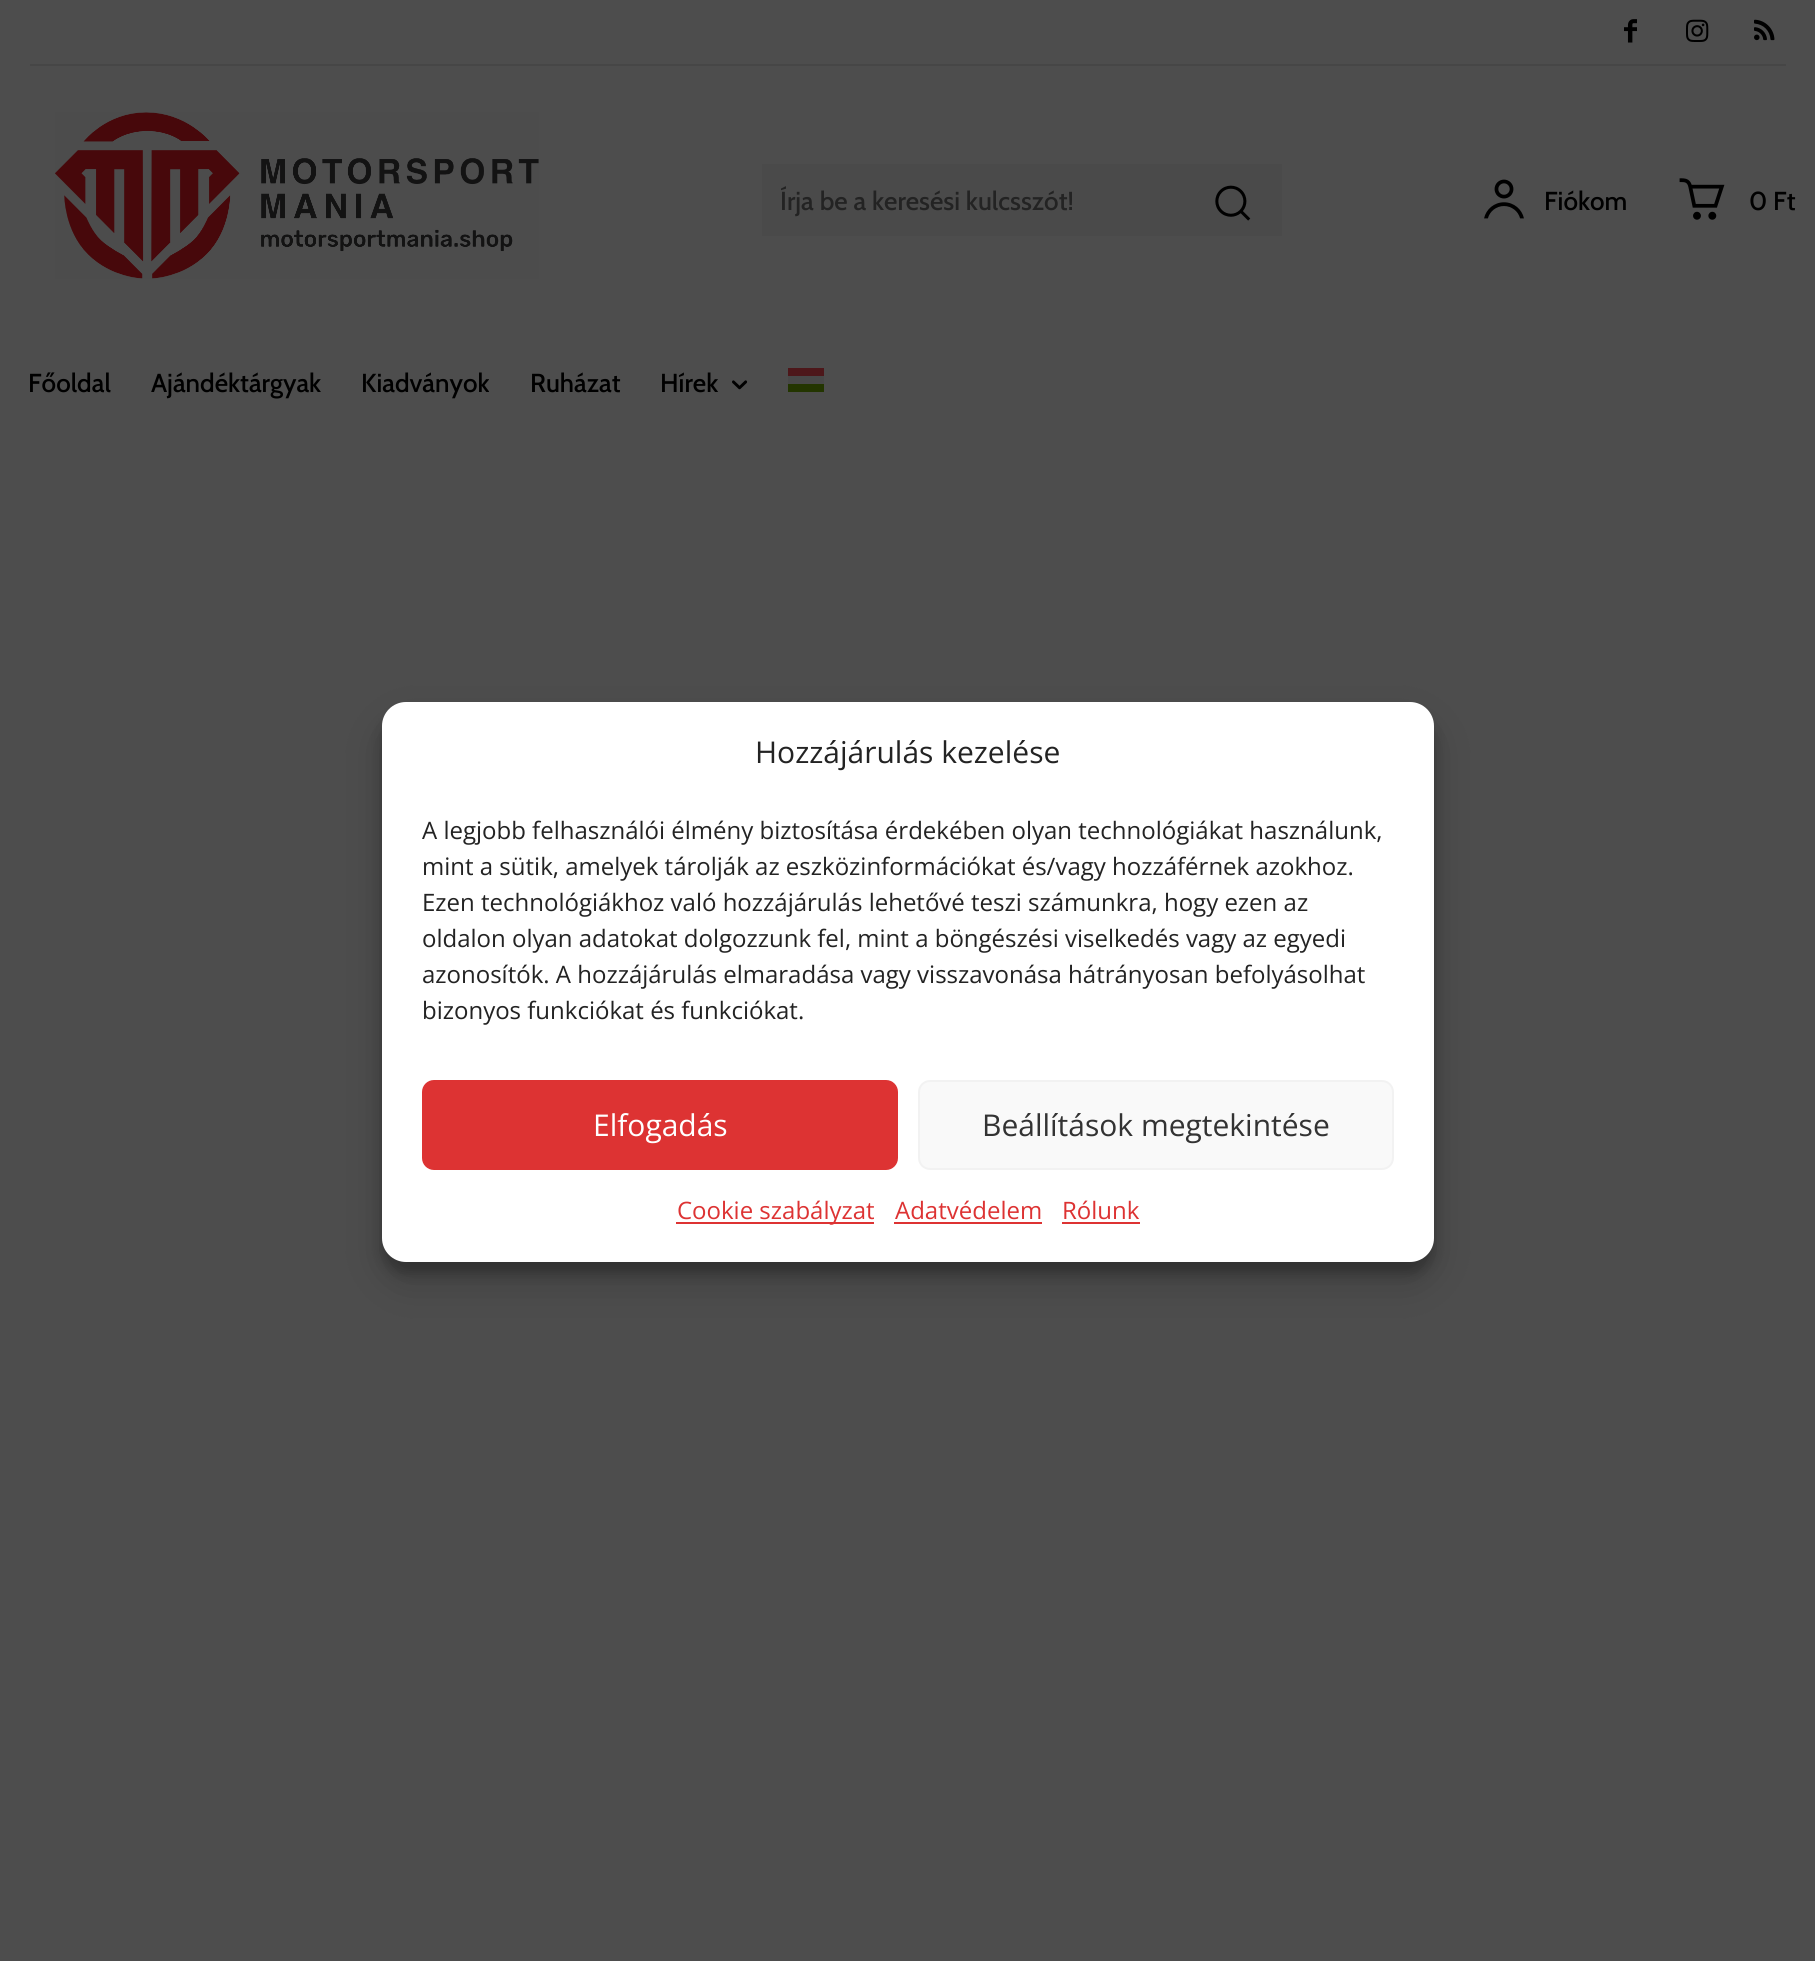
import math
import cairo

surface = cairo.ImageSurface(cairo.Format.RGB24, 1815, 1961)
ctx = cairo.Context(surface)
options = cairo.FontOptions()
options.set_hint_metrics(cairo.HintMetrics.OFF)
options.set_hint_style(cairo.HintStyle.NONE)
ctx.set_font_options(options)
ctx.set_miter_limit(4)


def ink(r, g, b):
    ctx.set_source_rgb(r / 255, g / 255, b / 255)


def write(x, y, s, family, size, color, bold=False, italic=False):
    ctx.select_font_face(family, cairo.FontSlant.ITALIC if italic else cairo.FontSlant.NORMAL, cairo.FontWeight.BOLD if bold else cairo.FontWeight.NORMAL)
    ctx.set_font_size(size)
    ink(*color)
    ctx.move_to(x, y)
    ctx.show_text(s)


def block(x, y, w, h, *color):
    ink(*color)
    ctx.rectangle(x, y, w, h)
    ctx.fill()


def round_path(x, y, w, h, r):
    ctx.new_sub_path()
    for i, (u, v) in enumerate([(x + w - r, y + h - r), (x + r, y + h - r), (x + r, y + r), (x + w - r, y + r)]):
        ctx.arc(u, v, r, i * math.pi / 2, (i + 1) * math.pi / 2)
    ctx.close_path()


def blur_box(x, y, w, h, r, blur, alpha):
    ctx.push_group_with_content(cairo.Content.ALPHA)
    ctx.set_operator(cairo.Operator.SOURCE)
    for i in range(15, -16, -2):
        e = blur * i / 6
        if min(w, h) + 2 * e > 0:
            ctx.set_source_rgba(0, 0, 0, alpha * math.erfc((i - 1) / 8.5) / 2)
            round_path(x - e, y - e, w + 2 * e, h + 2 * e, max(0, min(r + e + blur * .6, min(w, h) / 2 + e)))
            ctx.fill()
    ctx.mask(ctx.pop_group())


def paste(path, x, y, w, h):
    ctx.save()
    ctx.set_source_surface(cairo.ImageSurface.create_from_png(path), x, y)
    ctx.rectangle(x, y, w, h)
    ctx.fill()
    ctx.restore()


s1 = dict(family="Cabin Medium", size=26, color=(35, 35, 35))
s2 = dict(family="Cabin Medium", size=26, color=(0, 0, 0))
s3 = dict(family="Open Sans", size=30, color=(35, 35, 35))
s4 = dict(family="Open Sans", size=24, color=(35, 35, 35))
s5 = dict(family="Open Sans", size=30, color=(255, 255, 255))
s6 = dict(family="Open Sans", size=30, color=(51, 51, 51))
s7 = dict(family="Open Sans", size=24, color=(221, 51, 51))

ink(77, 77, 77)
ctx.paint()
paste("pic1.png", 1624, 19, 13, 24)
paste("pic2.png", 1686, 19, 23, 23)
paste("pic3.png", 1754, 19, 21, 22)
block(30, 64, 1756, 2, 70, 70, 70)
paste("pic4.png", 55, 112, 484, 167)
block(762, 164, 520, 72, 74, 74, 74)
write(780, 210, "Írja be a keresési kulcsszót!", **s1)
paste("pic5.png", 1215, 185, 36, 36)
paste("pic6.png", 1484, 179, 40, 40)
write(1544, 210, "Fiókom", **s2)
paste("pic7.png", 1679, 178, 46, 42)
write(1749, 210, "0 Ft", **s2)
write(28, 392, "Főoldal", **s2)
write(151, 392, "Ajándéktárgyak", **s2)
write(361, 392, "Kiadványok", **s2)
write(530, 392, "Ruházat", **s2)
write(660, 392, "Hírek", **s2)
paste("pic8.png", 732, 380, 16, 10)
block(788, 368, 36, 8, 77, 23, 26)
block(788, 376, 36, 8, 72, 72, 72)
block(788, 384, 36, 8, 35, 53, 0)
ink(0, 0, 0)
blur_box(382, 714, 1052, 560, 24, 6, 0.23)
blur_box(382, 722, 1052, 560, 24, 20, 0.19)
ink(255, 255, 255)
round_path(382, 702, 1052, 560, 24)
ctx.fill()
write(755, 763, "Hozzájárulás kezelése", **s3)
write(422, 839, "A legjobb felhasználói élmény biztosítása érdekében olyan technológiákat használunk,", **s4)
write(422, 875, "mint a sütik, amelyek tárolják az eszközinformációkat és/vagy hozzáférnek azokhoz.", **s4)
write(422, 911, "Ezen technológiákhoz való hozzájárulás lehetővé teszi számunkra, hogy ezen az", **s4)
write(422, 947, "oldalon olyan adatokat dolgozzunk fel, mint a böngészési viselkedés vagy az egyedi", **s4)
write(422, 983, "azonosítók. A hozzájárulás elmaradása vagy visszavonása hátrányosan befolyásolhat", **s4)
write(422, 1019, "bizonyos funkciókat és funkciókat.", **s4)
ink(221, 51, 51)
round_path(423, 1081, 474, 88, 11)
ctx.fill_preserve()
ctx.stroke()
write(593, 1136, "Elfogadás", **s5)
ink(249, 249, 249)
round_path(919, 1081, 474, 88, 11)
ctx.fill_preserve()
ink(242, 242, 242)
ctx.stroke()
write(982, 1136, "Beállítások megtekintése", **s6)
block(676, 1222, 198, 2, 221, 51, 51)
write(677, 1219, "Cookie szabályzat", **s7)
write(895, 1219, "Adatvédelem", **s7)
block(894, 1222, 148, 2, 221, 51, 51)
write(1062, 1219, "Rólunk", **s7)
block(1062, 1222, 78, 2, 221, 51, 51)
surface.write_to_png("screenshot.png")
